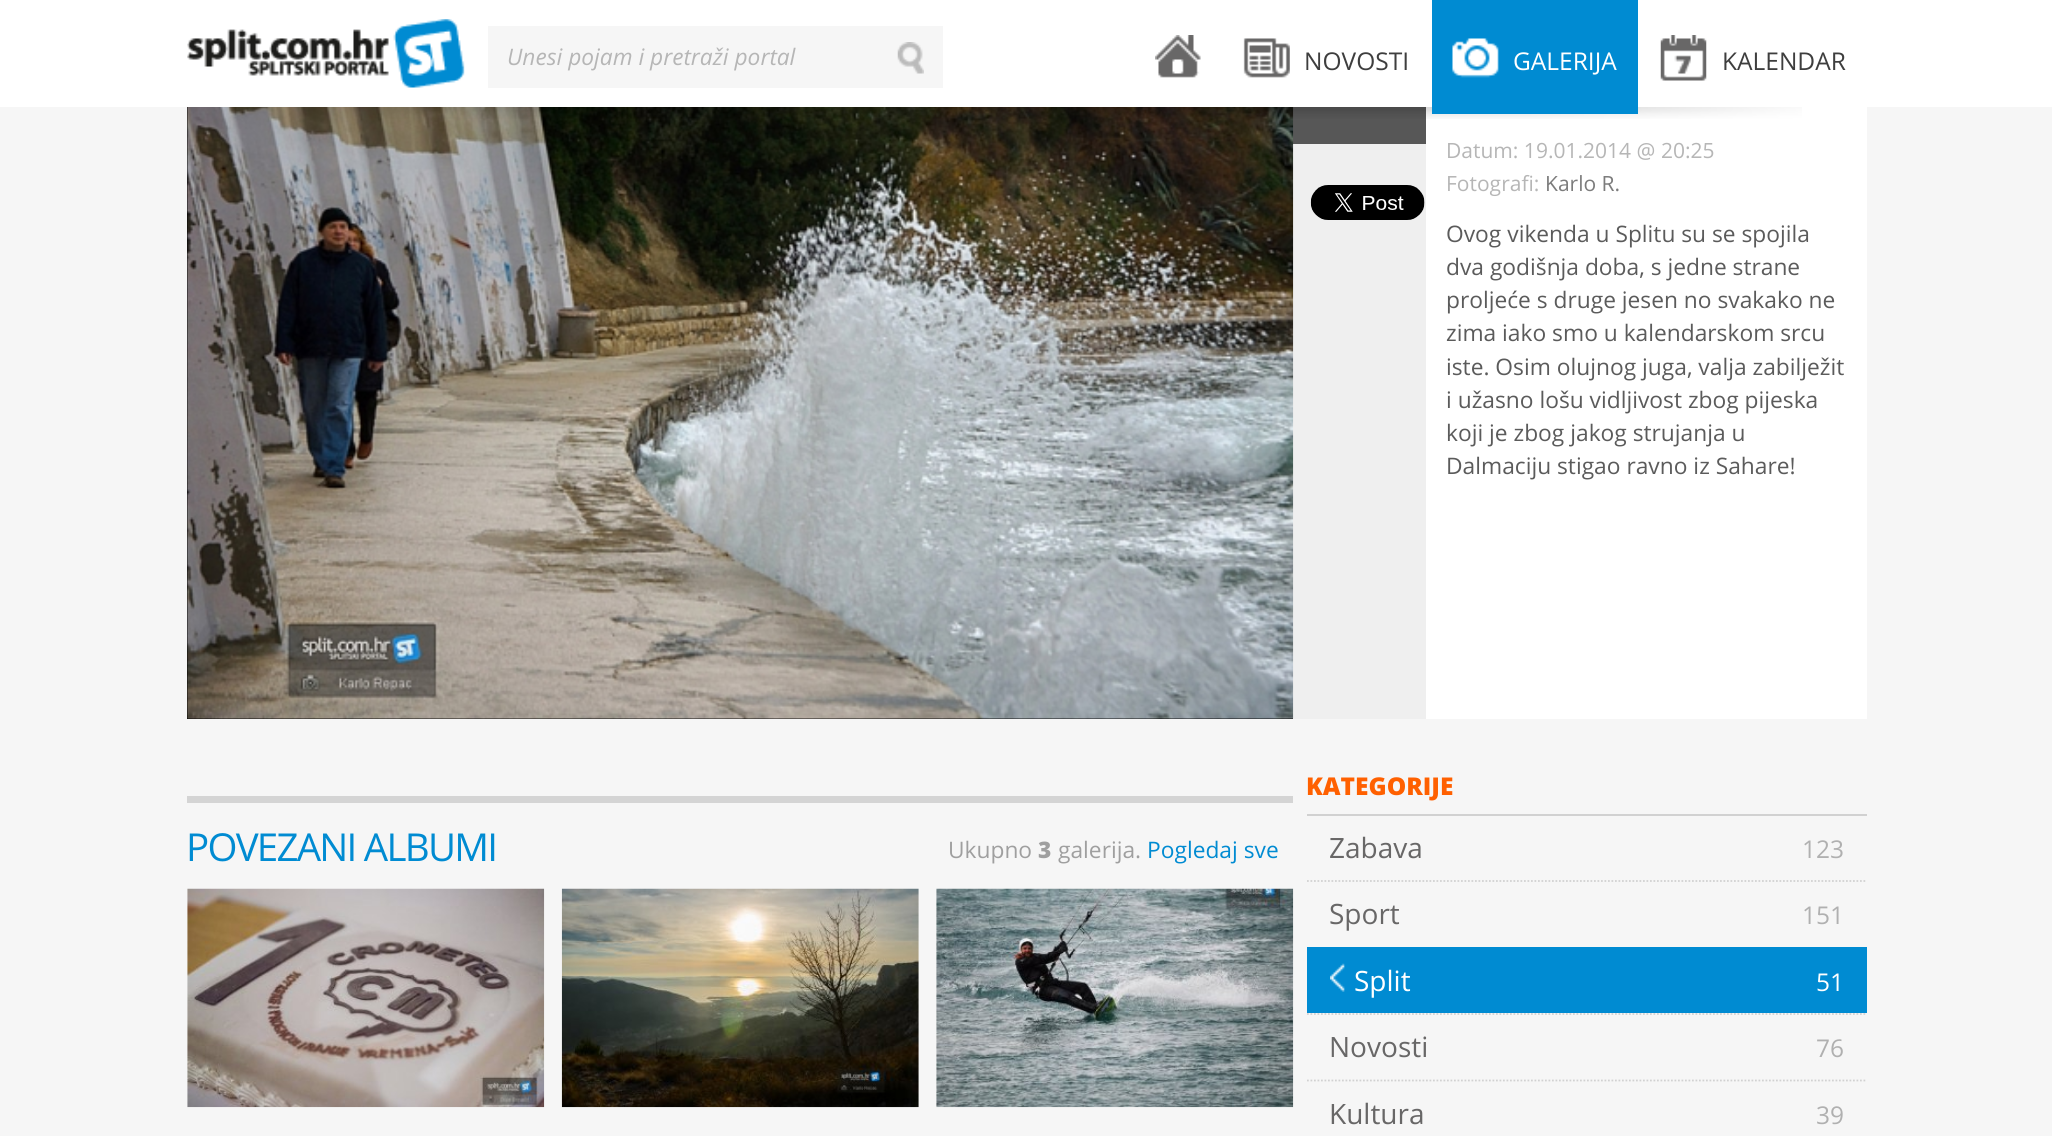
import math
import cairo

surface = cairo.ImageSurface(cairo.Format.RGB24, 2052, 1136)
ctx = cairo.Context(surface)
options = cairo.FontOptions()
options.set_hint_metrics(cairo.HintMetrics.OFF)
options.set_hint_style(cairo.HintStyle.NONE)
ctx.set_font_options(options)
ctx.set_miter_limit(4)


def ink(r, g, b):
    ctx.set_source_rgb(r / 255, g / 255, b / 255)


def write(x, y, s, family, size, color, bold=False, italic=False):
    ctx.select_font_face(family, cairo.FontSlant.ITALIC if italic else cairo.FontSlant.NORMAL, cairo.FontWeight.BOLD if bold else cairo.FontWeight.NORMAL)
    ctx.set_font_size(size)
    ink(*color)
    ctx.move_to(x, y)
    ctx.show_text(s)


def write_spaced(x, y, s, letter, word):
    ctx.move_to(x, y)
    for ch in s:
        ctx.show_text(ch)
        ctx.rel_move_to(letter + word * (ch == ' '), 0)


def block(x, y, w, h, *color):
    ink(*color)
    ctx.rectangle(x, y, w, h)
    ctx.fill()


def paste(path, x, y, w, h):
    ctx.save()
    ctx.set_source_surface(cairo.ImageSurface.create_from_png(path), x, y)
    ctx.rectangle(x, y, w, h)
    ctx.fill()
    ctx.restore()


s1 = dict(family="Open Sans", size=22.75, color=(182, 182, 182), italic=True)
s2 = dict(family="Open Sans", size=24.5, color=(62, 62, 62))
s3 = dict(family="Open Sans", size=24.5, color=(255, 255, 255))
s4 = dict(family="Open Sans", size=21, color=(182, 182, 182))
s5 = dict(family="Open Sans", size=21, color=(124, 124, 124))
s6 = dict(family="Open Sans", size=22.75, color=(91, 91, 91))
s7 = dict(family="Open Sans", size=22.75, color=(159, 159, 159))
s8 = dict(family="Open Sans ExtraBold", size=22.75, color=(159, 159, 159))
s9 = dict(family="Open Sans", size=22.75, color=(0, 139, 210))
s10 = dict(family="Open Sans ExtraBold", size=24.5, color=(255, 96, 0))
s11 = dict(family="Open Sans", size=28, color=(104, 103, 103))
s12 = dict(family="Open Sans", size=24.5, color=(176, 176, 176))
s13 = dict(family="Open Sans", size=28, color=(255, 255, 255))

ink(246, 246, 246)
ctx.paint()
block(0, 0, 2052, 107, 255, 255, 255)
paste("pic1.png", 187, 19, 278, 69)
block(488, 26, 455, 62, 246, 246, 246)
write(507, 65, "Unesi pojam i pretraži portal", **s1)
paste("pic2.png", 897, 42, 27, 32)
paste("pic3.png", 1155, 35, 46, 43)
paste("pic4.png", 1243, 38, 47, 40)
write(1304, 70, "NOVOSTI", **s2)
block(187, 107, 1106, 612, 0, 0, 0)
block(1293, 144, 133, 575, 239, 239, 239)
block(1293, 107, 133, 37, 87, 87, 87)
paste("pic8.png", 187, 107, 1107, 612)
block(1426, 107, 441, 612, 255, 255, 255)
paste("pic7.png", 327, 107, 1475, 12)
block(1432, 0, 206, 114, 0, 139, 210)
paste("pic5.png", 1452, 38, 47, 40)
write(1513, 70, "GALERIJA", **s3)
paste("pic6.png", 1660, 35, 47, 46)
write(1722, 70, "KALENDAR", **s2)
paste("pic9.png", 1310, 185, 115, 35)
write(1446, 158, "Datum: 19.01.2014 @ 20:25", **s4)
write(1446, 191, "Fotografi:", **s4)
write(1545, 191, "Karlo R.", **s5)
write(1446, 242, "Ovog vikenda u Splitu su se spojila", **s6)
write(1446, 275, "dva godišnja doba, s jedne strane", **s6)
write(1446, 308, "proljeće s druge jesen no svakako ne", **s6)
write(1446, 341, "zima iako smo u kalendarskom srcu", **s6)
write(1446, 375, "iste. Osim olujnog juga, valja zabilježit", **s6)
write(1446, 408, "i užasno lošu vidljivost zbog pijeska", **s6)
write(1446, 441, "koji je zbog jakog strujanja u", **s6)
write(1446, 474, "Dalmaciju stigao ravno iz Sahare!", **s6)
block(187, 796, 1106, 7, 212, 212, 212)
ctx.set_font_size(38.5)
ink(0, 139, 210)
write_spaced(186, 861, "POVEZANI ALBUMI", -1.75, 0)
write(948, 858, "Ukupno", **s7)
write(1038, 858, "3", **s8)
write(1058, 858, "galerija.", **s7)
write(1147, 858, "Pogledaj sve", **s9)
paste("pic10.png", 187, 888, 358, 220)
paste("pic11.png", 561, 888, 358, 220)
paste("pic12.png", 936, 888, 358, 220)
write(1306, 795, "KATEGORIJE", **s10)
block(1307, 814, 560, 2, 209, 209, 209)
write(1329, 858, "Zabava", **s11)
write(1802, 858, "123", **s12)
ctx.new_path()
ctx.move_to(1307, 881)
ctx.line_to(1867, 881)
ink(209, 209, 209)
ctx.set_line_width(1.8)
ctx.set_dash([1.75, 1.75])
ctx.stroke()
write(1329, 924, "Sport", **s11)
write(1802, 924, "151", **s12)
block(1307, 947, 560, 66, 0, 139, 210)
paste("pic13.png", 1330, 963, 15, 29)
write(1354, 991, "Split", **s13)
write(1816, 991, "51", **s3)
ctx.new_path()
ctx.move_to(1307, 1014)
ctx.line_to(1867, 1014)
ink(209, 209, 209)
ctx.stroke()
write(1329, 1057, "Novosti", **s11)
write(1816, 1057, "76", **s12)
ctx.new_path()
ctx.move_to(1307, 1080.5)
ctx.line_to(1867, 1080.5)
ink(209, 209, 209)
ctx.stroke()
write(1329, 1124, "Kultura", **s11)
write(1816, 1124, "39", **s12)
surface.write_to_png("screenshot.png")
